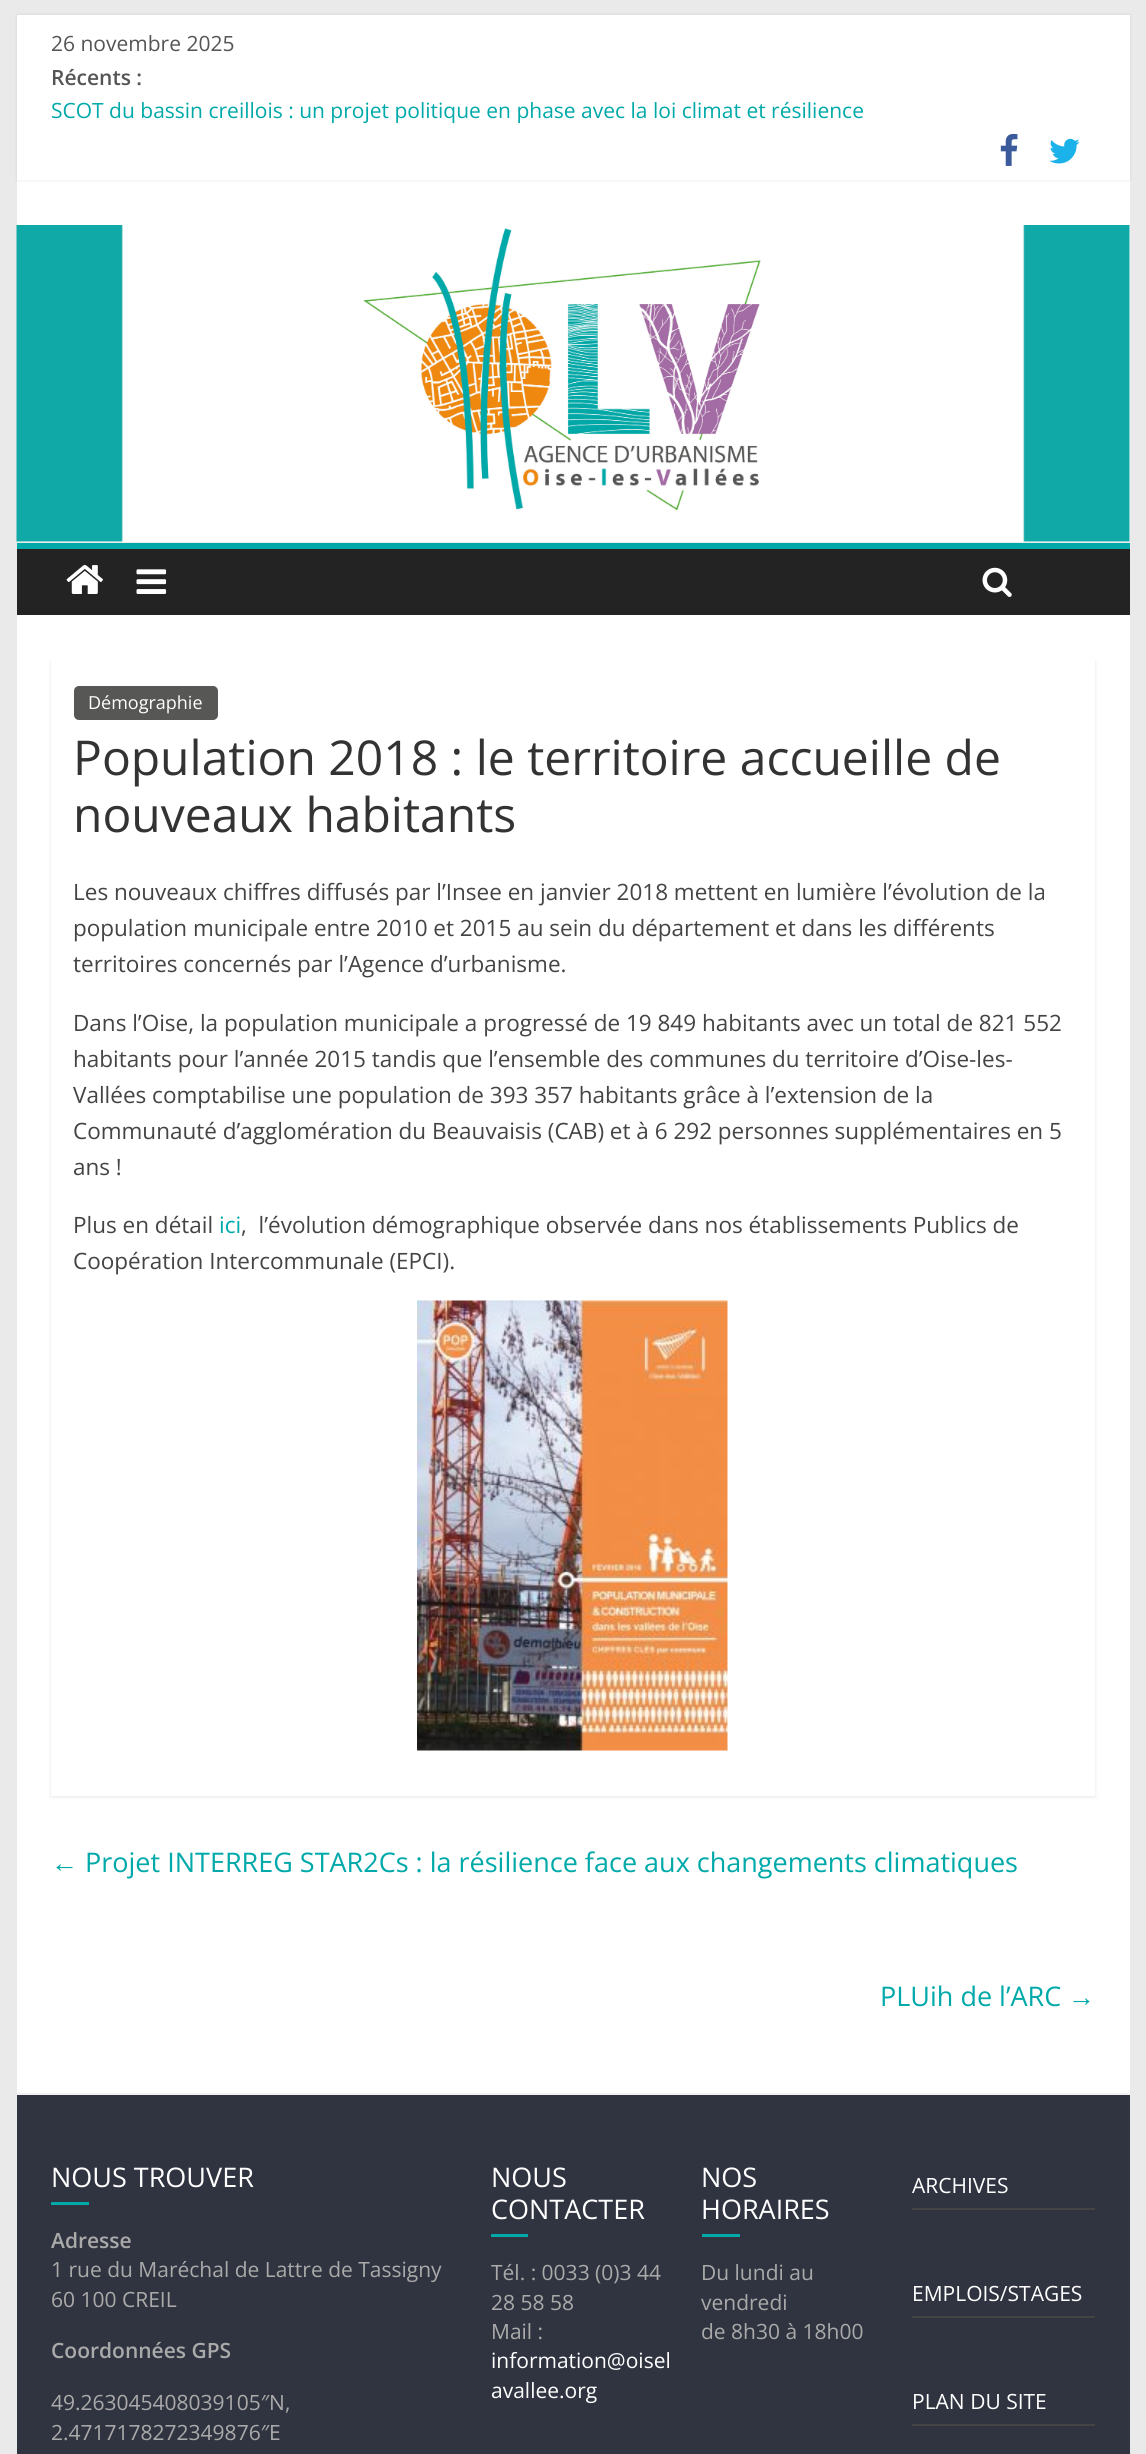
import math
import cairo

surface = cairo.ImageSurface(cairo.Format.RGB24, 1146, 2454)
ctx = cairo.Context(surface)
options = cairo.FontOptions()
options.set_hint_metrics(cairo.HintMetrics.OFF)
options.set_hint_style(cairo.HintStyle.NONE)
ctx.set_font_options(options)
ctx.set_miter_limit(4)


def ink(r, g, b):
    ctx.set_source_rgb(r / 255, g / 255, b / 255)


def write(x, y, s, family, size, color, bold=False, italic=False):
    ctx.select_font_face(family, cairo.FontSlant.ITALIC if italic else cairo.FontSlant.NORMAL, cairo.FontWeight.BOLD if bold else cairo.FontWeight.NORMAL)
    ctx.set_font_size(size)
    ink(*color)
    ctx.move_to(x, y)
    ctx.show_text(s)


def block(x, y, w, h, *color):
    ink(*color)
    ctx.rectangle(x, y, w, h)
    ctx.fill()


def round_path(x, y, w, h, r):
    ctx.new_sub_path()
    for i, (u, v) in enumerate([(x + w - r, y + h - r), (x + r, y + h - r), (x + r, y + r), (x + w - r, y + r)]):
        ctx.arc(u, v, r, i * math.pi / 2, (i + 1) * math.pi / 2)
    ctx.close_path()


def blur_box(x, y, w, h, r, blur, alpha):
    ctx.push_group_with_content(cairo.Content.ALPHA)
    ctx.set_operator(cairo.Operator.SOURCE)
    for i in range(15, -16, -2):
        e = blur * i / 6
        if min(w, h) + 2 * e > 0:
            ctx.set_source_rgba(0, 0, 0, alpha * math.erfc((i - 1) / 8.5) / 2)
            round_path(x - e, y - e, w + 2 * e, h + 2 * e, max(0, min(r + e + blur * .6, min(w, h) / 2 + e)))
            ctx.fill()
    ctx.mask(ctx.pop_group())


def paste(path, x, y, w, h):
    ctx.save()
    ctx.set_source_surface(cairo.ImageSurface.create_from_png(path), x, y)
    ctx.rectangle(x, y, w, h)
    ctx.fill()
    ctx.restore()


s1 = dict(family="Open Sans", size=21, color=(85, 85, 85))
s2 = dict(family="Open Sans SemiBold", size=21, color=(85, 85, 85))
s3 = dict(family="Open Sans", size=21, color=(0, 169, 169))
s4 = dict(family="Open Sans", size=18, color=(255, 255, 255))
s5 = dict(family="Open Sans", size=48, color=(51, 51, 51))
s6 = dict(family="Open Sans", size=22.5, color=(68, 68, 68))
s7 = dict(family="Open Sans", size=22.5, color=(0, 169, 169))
s8 = dict(family="Liberation Serif", size=27, color=(0, 169, 169))
s9 = dict(family="Open Sans", size=27, color=(0, 169, 169))
s10 = dict(family="Open Sans", size=27, color=(255, 255, 255))
s11 = dict(family="Open Sans SemiBold", size=21, color=(170, 170, 170))
s12 = dict(family="Open Sans", size=21, color=(170, 170, 170))
s13 = dict(family="Open Sans", size=21, color=(255, 255, 255))

ink(234, 234, 234)
ctx.paint()
block(17, 180, 1113, 362, 255, 255, 255)
ink(0, 0, 0)
blur_box(17, 15, 1113, 165, 0, 1.5, 0.1)
block(17, 15, 1113, 165, 255, 255, 255)
write(51, 51, "26 novembre 2025", **s1)
write(51, 85, "Récents :", **s2)
write(51, 118, "SCOT du bassin creillois : un projet politique en phase avec la loi climat et résilience", **s3)
paste("pic1.png", 1000, 133, 18, 33)
paste("pic2.png", 1049, 138, 31, 26)
paste("pic3.png", 16, 225, 1114, 317)
block(17, 549, 1113, 66, 35, 35, 35)
block(17, 543, 1113, 6, 0, 169, 169)
paste("pic4.png", 66, 565, 37, 29)
paste("pic5.png", 136, 569, 31, 25)
paste("pic6.png", 982, 567, 30, 30)
block(17, 615, 1113, 1478, 255, 255, 255)
ctx.save()
ctx.set_fill_rule(cairo.FillRule.EVEN_ODD)
ctx.new_path()
ctx.move_to(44, 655)
ctx.line_to(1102, 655)
ctx.line_to(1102, 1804)
ctx.line_to(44, 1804)
ctx.close_path()
ctx.move_to(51, 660)
ctx.line_to(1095, 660)
ctx.line_to(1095, 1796)
ctx.line_to(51, 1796)
ctx.close_path()
ctx.clip()
ink(0, 0, 0)
blur_box(51, 662, 1044, 1135, 0, 2, 0.1)
ctx.restore()
ink(87, 87, 86)
round_path(74, 686, 144, 34, 5)
ctx.fill()
write(88, 709, "Démographie", **s4)
write(73, 775, "Population 2018 : le territoire accueille de", **s5)
write(73, 832, "nouveaux habitants", **s5)
write(73, 900, "Les nouveaux chiffres diffusés par l’Insee en janvier 2018 mettent en lumière l’évolution de la", **s6)
write(73, 936, "population municipale entre 2010 et 2015 au sein du département et dans les différents", **s6)
write(73, 972, "territoires concernés par l’Agence d’urbanisme.", **s6)
write(73, 1031, "Dans l’Oise, la population municipale a progressé de 19 849 habitants avec un total de 821 552", **s6)
write(73, 1067, "habitants pour l’année 2015 tandis que l’ensemble des communes du territoire d’Oise-les-", **s6)
write(73, 1103, "Vallées comptabilise une population de 393 357 habitants grâce à l’extension de la", **s6)
write(73, 1139, "Communauté d’agglomération du Beauvaisis (CAB) et à 6 292 personnes supplémentaires en 5", **s6)
write(73, 1175, "ans !", **s6)
write(73, 1233, "Plus en détail", **s6)
write(219, 1233, "ici", **s7)
write(241, 1233, ",  l’évolution démographique observée dans nos établissements Publics de", **s6)
write(73, 1269, "Coopération Intercommunale (EPCI).", **s6)
paste("pic7.png", 417, 1300, 311, 451)
write(51, 1872, "←", **s8)
write(85, 1872, "Projet INTERREG STAR2Cs : la résilience face aux changements climatiques", **s9)
write(880, 2006, "PLUih de l’ARC", **s9)
write(1068, 2006, "→", **s8)
block(17, 2095, 1113, 359, 48, 52, 64)
block(17, 2093, 1113, 2, 242, 242, 242)
write(51, 2187, "NOUS TROUVER", **s10)
block(51, 2202, 38, 3, 0, 169, 169)
write(51, 2248, "Adresse", **s11)
write(51, 2277, "1 rue du Maréchal de Lattre de Tassigny", **s12)
write(51, 2307, "60 100 CREIL", **s12)
write(51, 2358, "Coordonnées GPS", **s11)
write(51, 2410, "49.263045408039105″N,", **s12)
write(51, 2440, "2.4717178272349876″E", **s12)
write(491, 2187, "NOUS", **s10)
write(491, 2219, "CONTACTER", **s10)
block(491, 2234, 37, 3, 0, 169, 169)
write(491, 2280, "Tél. : 0033 (0)3 44", **s12)
write(491, 2310, "28 58 58", **s12)
write(491, 2339, "Mail :", **s12)
write(491, 2368, "information@oisel", **s13)
write(491, 2398, "avallee.org", **s13)
write(701, 2187, "NOS", **s10)
write(701, 2219, "HORAIRES", **s10)
block(702, 2234, 38, 3, 0, 169, 169)
write(701, 2280, "Du lundi au", **s12)
write(701, 2310, "vendredi", **s12)
write(701, 2339, "de 8h30 à 18h00", **s12)
block(912, 2208, 183, 2, 68, 68, 68)
write(912, 2193, "ARCHIVES", **s13)
block(912, 2316, 183, 2, 68, 68, 68)
write(912, 2301, "EMPLOIS/STAGES", **s13)
block(912, 2424, 183, 2, 68, 68, 68)
write(912, 2409, "PLAN DU SITE", **s13)
surface.write_to_png("screenshot.png")
